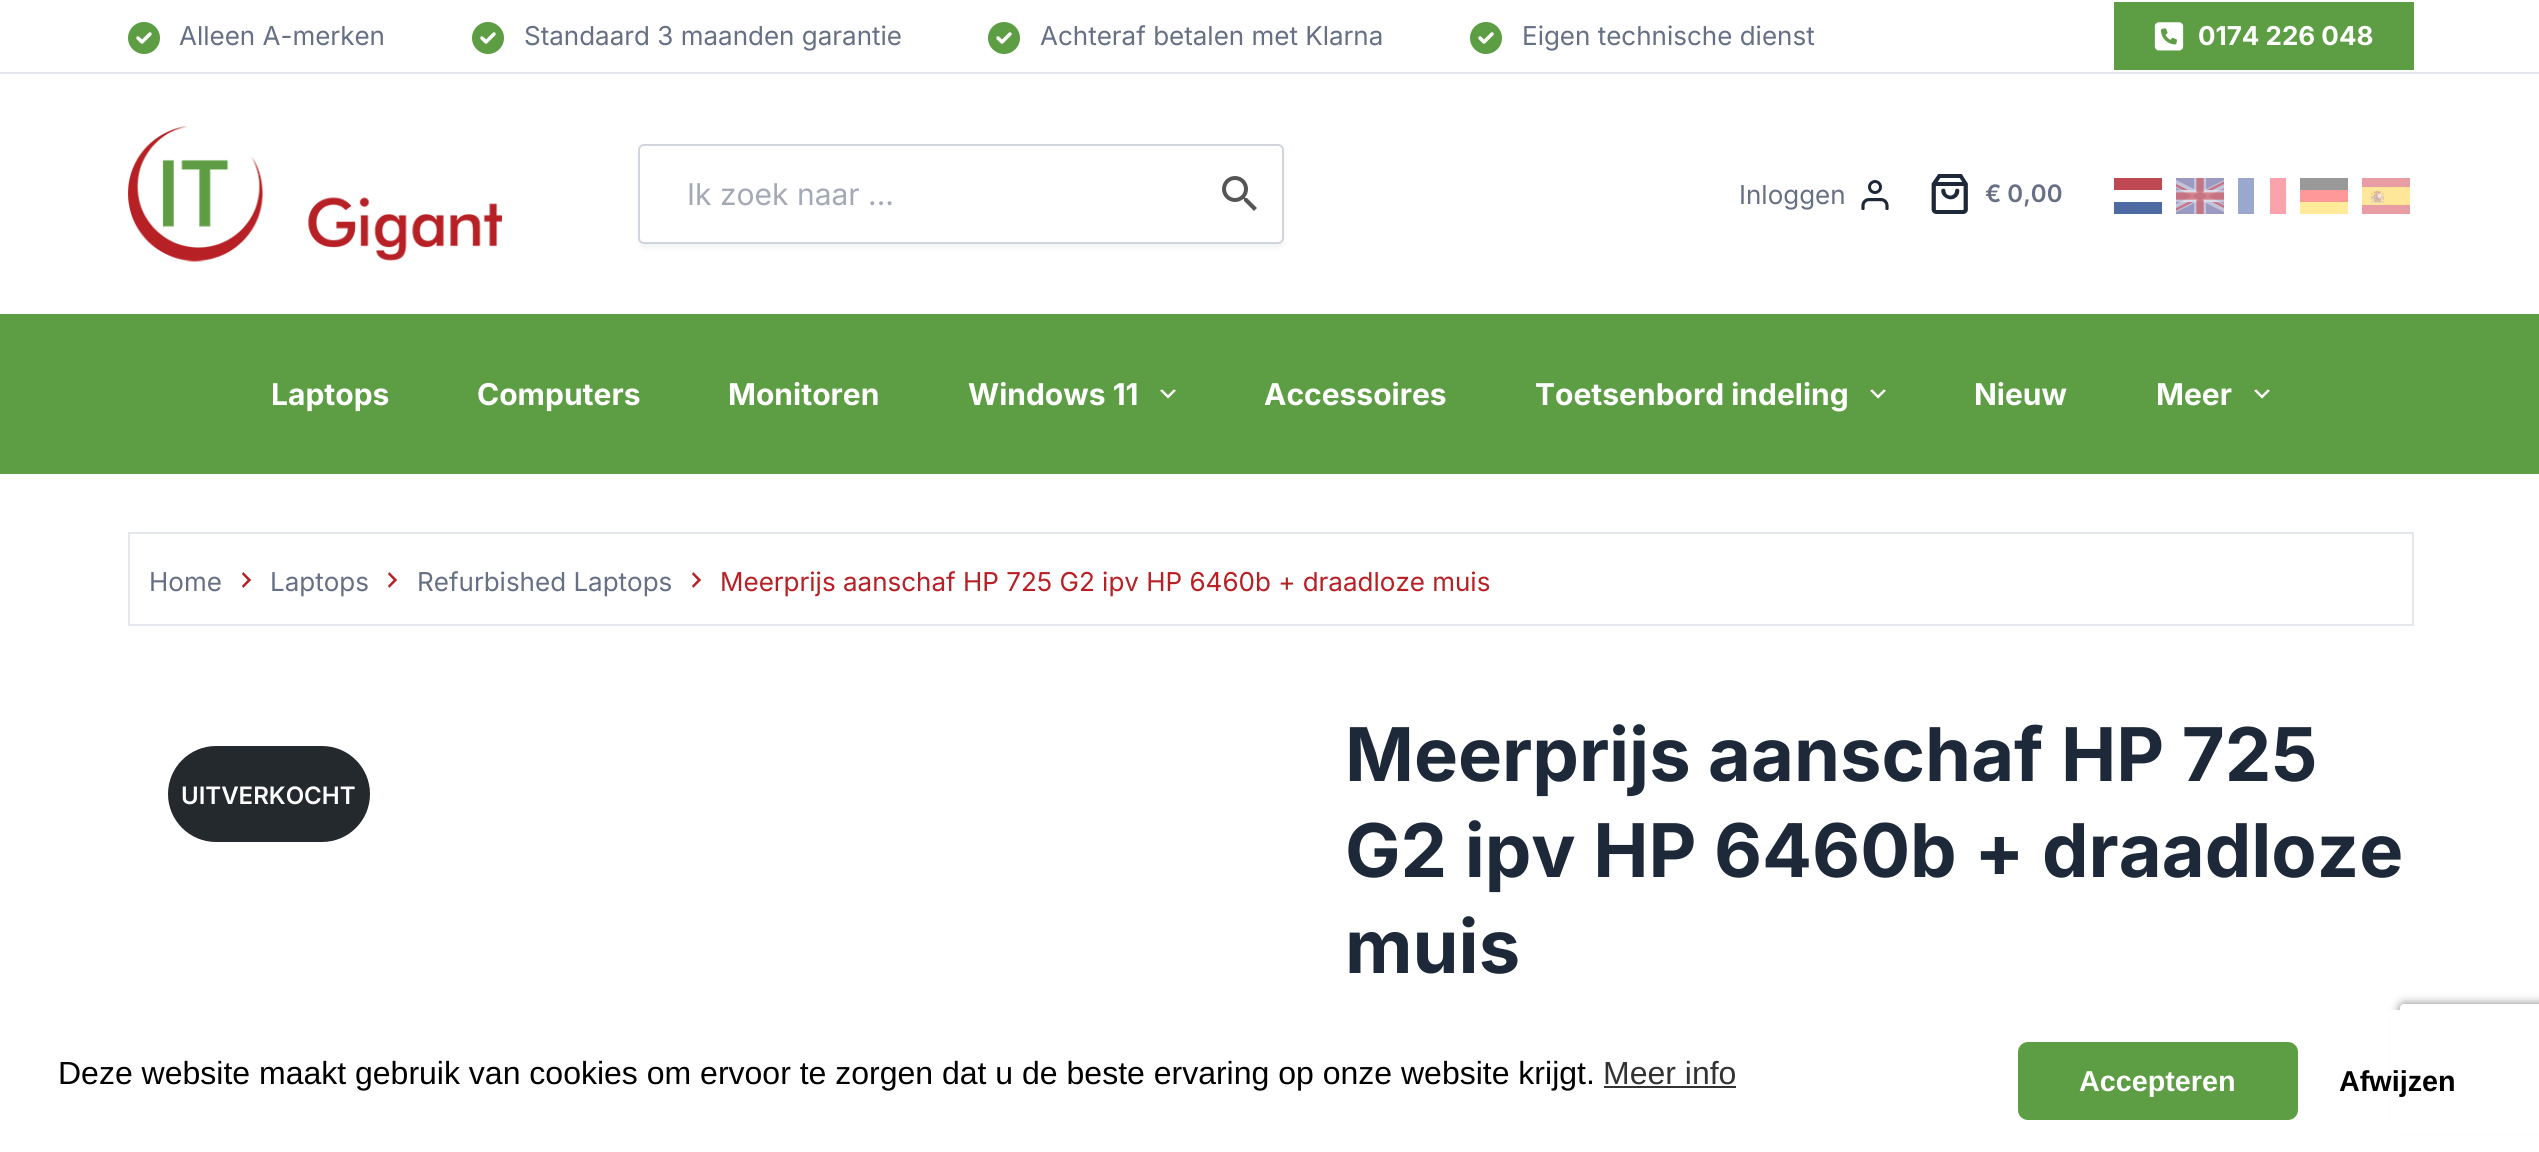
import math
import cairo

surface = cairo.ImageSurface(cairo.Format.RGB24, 2539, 1152)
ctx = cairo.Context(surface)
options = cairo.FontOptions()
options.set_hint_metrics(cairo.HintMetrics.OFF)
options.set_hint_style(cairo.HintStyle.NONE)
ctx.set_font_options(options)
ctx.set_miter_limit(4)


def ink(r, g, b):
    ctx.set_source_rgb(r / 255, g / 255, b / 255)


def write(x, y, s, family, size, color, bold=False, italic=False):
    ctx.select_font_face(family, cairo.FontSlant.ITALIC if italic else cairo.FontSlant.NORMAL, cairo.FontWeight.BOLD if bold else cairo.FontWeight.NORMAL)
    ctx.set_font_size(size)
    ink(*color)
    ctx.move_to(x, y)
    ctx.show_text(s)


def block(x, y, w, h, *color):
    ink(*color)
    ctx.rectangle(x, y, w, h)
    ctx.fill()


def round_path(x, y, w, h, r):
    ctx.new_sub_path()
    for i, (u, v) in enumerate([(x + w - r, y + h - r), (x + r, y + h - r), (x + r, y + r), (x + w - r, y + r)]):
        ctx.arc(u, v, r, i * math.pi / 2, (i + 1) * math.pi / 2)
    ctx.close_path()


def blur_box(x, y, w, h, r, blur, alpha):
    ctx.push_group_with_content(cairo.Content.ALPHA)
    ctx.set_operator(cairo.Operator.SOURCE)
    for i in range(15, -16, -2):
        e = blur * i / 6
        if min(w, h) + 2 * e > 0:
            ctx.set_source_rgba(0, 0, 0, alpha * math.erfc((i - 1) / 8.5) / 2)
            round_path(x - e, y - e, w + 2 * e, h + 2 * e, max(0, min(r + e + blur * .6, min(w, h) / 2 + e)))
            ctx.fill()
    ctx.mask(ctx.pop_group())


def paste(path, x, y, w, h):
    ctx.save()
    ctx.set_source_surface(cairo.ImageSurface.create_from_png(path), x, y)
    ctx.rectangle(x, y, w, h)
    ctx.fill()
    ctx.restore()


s1 = dict(family="Inter", size=26, color=(102, 112, 133))
s2 = dict(family="Inter", size=26, color=(255, 255, 255), bold=True)
s3 = dict(family="Inter", size=30, color=(163, 169, 182))
s4 = dict(family="Inter SemiBold", size=24, color=(102, 112, 133))
s5 = dict(family="Inter", size=30, color=(255, 255, 255), bold=True)
s6 = dict(family="Inter", size=26, color=(183, 32, 37))
s7 = dict(family="Inter SemiBold", size=24, color=(255, 255, 255))
s8 = dict(family="Inter", size=74, color=(29, 41, 57), bold=True)
s9 = dict(family="Liberation Sans", size=32, color=(0, 0, 0))
s10 = dict(family="Liberation Sans", size=32, color=(51, 51, 51))
s11 = dict(family="Liberation Sans", size=28.75, color=(255, 255, 255), bold=True)
s12 = dict(family="Liberation Sans", size=28.75, color=(0, 0, 0), bold=True)

ink(255, 255, 255)
ctx.paint()
block(0, 72, 2539, 2, 227, 231, 235)
paste("pic1.png", 128, 22, 32, 32)
write(179, 45, "Alleen A-merken", **s1)
paste("pic1.png", 472, 22, 32, 32)
write(524, 45, "Standaard 3 maanden garantie", **s1)
paste("pic1.png", 988, 22, 32, 32)
write(1040, 45, "Achteraf betalen met Klarna", **s1)
paste("pic1.png", 1470, 22, 32, 32)
write(1522, 45, "Eigen technische dienst", **s1)
block(2114, 2, 300, 68, 93, 157, 67)
paste("pic2.png", 2154, 22, 30, 29)
write(2198, 45, "0174 226 048", **s2)
paste("pic3.png", 128, 126, 374, 136)
ink(29, 41, 57)
blur_box(638, 148, 646, 100, 6, 2, 0.05)
ink(255, 255, 255)
round_path(639, 145, 644, 98, 5)
ctx.fill_preserve()
ink(208, 213, 221)
ctx.stroke()
write(687, 205, "Ik zoek naar ...", **s3)
paste("pic4.png", 1222, 176, 35, 35)
write(1739, 204, "Inloggen", **s1)
paste("pic5.png", 1861, 180, 28, 30)
paste("pic6.png", 1931, 174, 37, 40)
write(1985, 202, "€ 0,00", **s4)
block(2114, 178, 48, 12, 190, 73, 83)
paste("pic7.png", 2176, 178, 48, 36)
block(2238, 178, 16, 36, 153, 168, 204)
block(2270, 178, 16, 36, 250, 163, 172)
block(2300, 178, 48, 12, 153, 153, 153)
paste("pic8.png", 2362, 178, 48, 36)
block(2300, 190, 48, 12, 255, 153, 153)
block(2114, 202, 48, 12, 77, 107, 162)
block(2300, 202, 48, 12, 255, 235, 153)
block(0, 314, 2539, 160, 93, 157, 67)
write(271, 405, "Laptops", **s5)
write(477, 405, "Computers", **s5)
write(728, 405, "Monitoren", **s5)
write(968, 405, "Windows 11", **s5)
paste("pic9.png", 1160, 389, 16, 10)
write(1264, 405, "Accessoires", **s5)
write(1535, 405, "Toetsenbord indeling", **s5)
paste("pic9.png", 1870, 389, 16, 10)
write(1974, 405, "Nieuw", **s5)
write(2156, 405, "Meer", **s5)
paste("pic9.png", 2254, 389, 16, 10)
ctx.rectangle(129, 533, 2284, 92)
ink(228, 231, 236)
ctx.stroke()
write(149, 591, "Home", **s1)
paste("pic10.png", 242, 572, 10, 16)
write(270, 591, "Laptops", **s1)
paste("pic10.png", 388, 572, 10, 16)
write(417, 591, "Refurbished Laptops", **s1)
paste("pic10.png", 692, 572, 10, 16)
write(720, 591, "Meerprijs aanschaf HP 725 G2 ipv HP 6460b + draadloze muis", **s6)
ink(36, 41, 46)
round_path(168, 746, 202, 96, 48)
ctx.fill()
write(181, 804, "UITVERKOCHT", **s7)
write(1345, 781, "Meerprijs aanschaf HP 725", **s8)
write(1345, 877, "G2 ipv HP 6460b + draadloze", **s8)
write(1345, 973, "muis", **s8)
ctx.save()
ctx.set_fill_rule(cairo.FillRule.EVEN_ODD)
ctx.new_path()
ctx.move_to(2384, 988)
ctx.line_to(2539, 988)
ctx.line_to(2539, 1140)
ctx.line_to(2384, 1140)
ctx.close_path()
ctx.move_to(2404, 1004)
ctx.line_to(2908, 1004)
ctx.curve_to(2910, 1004, 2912, 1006, 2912, 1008)
ctx.line_to(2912, 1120)
ctx.curve_to(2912, 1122, 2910, 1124, 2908, 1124)
ctx.line_to(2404, 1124)
ctx.curve_to(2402, 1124, 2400, 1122, 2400, 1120)
ctx.line_to(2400, 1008)
ctx.curve_to(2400, 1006, 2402, 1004, 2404, 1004)
ctx.close_path()
ctx.clip()
ink(128, 128, 128)
blur_box(2400, 1004, 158, 120, 4, 5, 1)
ctx.restore()
block(2390, 1010, 149, 124, 255, 255, 255)
write(58, 1084, "Deze website maakt gebruik van cookies om ervoor te zorgen dat u de beste ervaring op onze website krijgt.", **s9)
write(1603, 1084, "Meer info", **s10)
block(1604, 1086, 132, 2, 51, 51, 51)
ink(93, 157, 67)
round_path(2018, 1042, 280, 78, 10)
ctx.fill()
write(2079, 1091, "Accepteren", **s11)
write(2339, 1091, "Afwijzen", **s12)
surface.write_to_png("screenshot.png")
